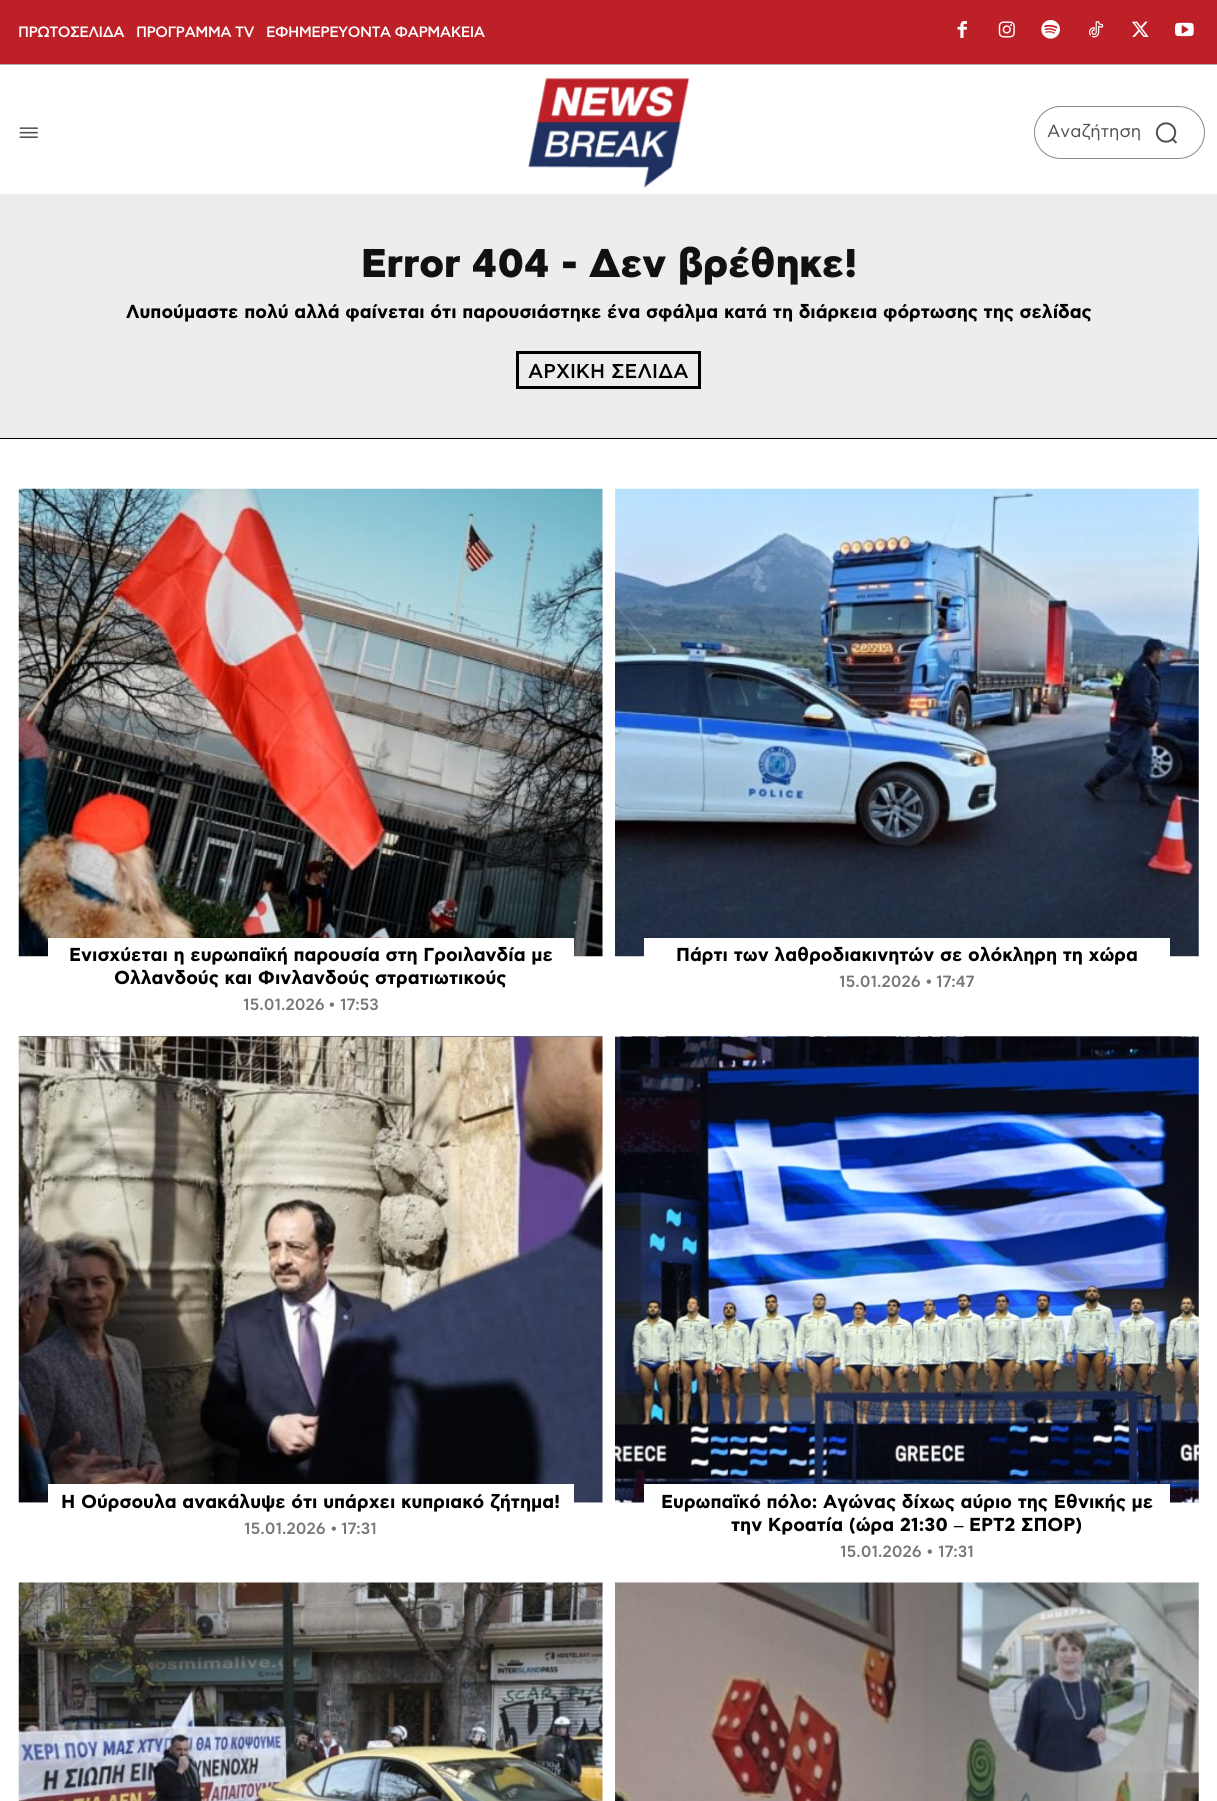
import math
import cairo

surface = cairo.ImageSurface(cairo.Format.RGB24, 1217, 1801)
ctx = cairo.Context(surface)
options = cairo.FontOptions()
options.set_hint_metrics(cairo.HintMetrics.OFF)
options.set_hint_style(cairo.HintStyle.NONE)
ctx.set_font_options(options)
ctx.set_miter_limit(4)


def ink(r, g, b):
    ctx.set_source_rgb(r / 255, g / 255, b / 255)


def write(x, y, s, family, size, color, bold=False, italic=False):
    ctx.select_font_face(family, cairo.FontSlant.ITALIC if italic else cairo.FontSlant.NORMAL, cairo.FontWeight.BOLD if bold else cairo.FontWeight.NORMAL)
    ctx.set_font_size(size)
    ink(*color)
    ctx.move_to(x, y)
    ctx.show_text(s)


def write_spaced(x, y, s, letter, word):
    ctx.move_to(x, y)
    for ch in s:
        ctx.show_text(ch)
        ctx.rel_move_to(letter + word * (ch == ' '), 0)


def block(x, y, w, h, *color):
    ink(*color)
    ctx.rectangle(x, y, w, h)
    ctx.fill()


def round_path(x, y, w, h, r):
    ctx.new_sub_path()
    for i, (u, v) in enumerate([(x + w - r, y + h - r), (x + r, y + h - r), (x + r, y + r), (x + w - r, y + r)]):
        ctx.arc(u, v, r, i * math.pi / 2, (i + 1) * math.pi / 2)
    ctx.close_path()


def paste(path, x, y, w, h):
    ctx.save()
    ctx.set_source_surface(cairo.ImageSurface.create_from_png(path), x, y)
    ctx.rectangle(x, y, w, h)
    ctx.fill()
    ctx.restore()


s1 = dict(family="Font", size=17.5, color=(80, 80, 80))
s2 = dict(family="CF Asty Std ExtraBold", size=40, color=(17, 17, 17))
s3 = dict(family="Font", size=18.75, color=(0, 0, 0), bold=True)
s4 = dict(family="CF Asty Std Medium", size=20, color=(0, 0, 0))
s5 = dict(family="CF Asty Std Medium", size=16.25, color=(118, 118, 118))
s6 = dict(family="Liberation Serif", size=16.25, color=(118, 118, 118), bold=True)
s7 = dict(family="Liberation Serif", size=18.75, color=(0, 0, 0), bold=True)

ink(255, 255, 255)
ctx.paint()
block(0, 0, 1217, 64, 189, 32, 39)
block(0, 64, 1217, 1, 175, 175, 175)
ctx.select_font_face("CF Asty Std Medium")
ctx.set_font_size(15)
ink(255, 255, 255)
write_spaced(18, 37, "ΠΡΩΤΟΣΕΛΙΔΑ", -0.6, 0)
write_spaced(136, 37, "ΠΡΟΓΡΑΜΜΑ TV", -0.6, 0)
write_spaced(266, 37, "ΕΦΗΜΕΡΕΥΟΝΤΑ ΦΑΡΜΑΚΕΙΑ", -0.6, 0)
paste("pic1.png", 957, 21, 10, 17)
paste("pic2.png", 998, 21, 17, 17)
paste("pic3.png", 1041, 20, 19, 19)
paste("pic4.png", 1088, 21, 16, 17)
paste("pic5.png", 1132, 21, 17, 16)
paste("pic6.png", 1175, 22, 19, 15)
paste("pic7.png", 19, 127, 19, 11)
paste("pic8.png", 528, 78, 162, 110)
round_path(1034.5, 106.5, 170, 52, 26)
ink(136, 136, 136)
ctx.set_line_width(1)
ctx.stroke()
write(1047, 137, "Αναζήτηση", **s1)
paste("pic9.png", 1155, 122, 23, 22)
block(0, 194, 1217, 244, 237, 237, 237)
block(0, 438, 1217, 1, 0, 0, 0)
write(361, 277, "Error 404 - Δεν βρέθηκε!", **s2)
write(126, 318, "Λυπούμαστε πολύ αλλά φαίνεται ότι παρουσιάστηκε ένα σφάλμα κατά τη διάρκεια φόρτωσης της σελίδας", **s3)
ctx.rectangle(517.5, 352.5, 182, 35)
ctx.set_line_width(3)
ctx.stroke()
write(528, 378, "ΑΡΧΙΚΗ ΣΕΛΙΔΑ", **s4)
paste("pic10.png", 18, 488, 585, 469)
block(48, 938, 526, 19, 255, 255, 255)
write(69, 961, "Ενισχύεται η ευρωπαϊκή παρουσία στη Γροιλανδία με", **s3)
write(114, 984, "Ολλανδούς και Φινλανδούς στρατιωτικούς", **s3)
write(243, 1010, "15.01.2026", **s5)
write(329, 1010, "•", **s6)
write(340, 1010, "17:53", **s5)
paste("pic11.png", 615, 488, 584, 469)
block(644, 938, 526, 19, 255, 255, 255)
write(676, 961, "Πάρτι των λαθροδιακινητών σε ολόκληρη τη χώρα", **s3)
write(839, 987, "15.01.2026", **s5)
write(926, 987, "•", **s6)
write(936, 987, "17:47", **s5)
paste("pic12.png", 18, 1036, 585, 467)
block(48, 1484, 526, 19, 255, 255, 255)
write(61, 1508, "Η Ούρσουλα ανακάλυψε ότι υπάρχει κυπριακό ζήτημα!", **s3)
write(244, 1534, "15.01.2026", **s5)
write(331, 1534, "•", **s6)
write(341, 1534, "17:31", **s5)
paste("pic13.png", 615, 1036, 584, 467)
block(644, 1484, 526, 19, 255, 255, 255)
write(661, 1508, "Ευρωπαϊκό πόλο: Αγώνας δίχως αύριο της Εθνικής με", **s3)
write(731, 1531, "την Κροατία (ώρα 21:30", **s3)
write(954, 1531, "–", **s7)
write(969, 1531, "ΕΡΤ2 ΣΠΟΡ)", **s3)
write(840, 1557, "15.01.2026", **s5)
write(927, 1557, "•", **s6)
write(938, 1557, "17:31", **s5)
paste("pic14.png", 18, 1582, 585, 219)
paste("pic15.png", 615, 1582, 584, 219)
surface.write_to_png("screenshot.png")
